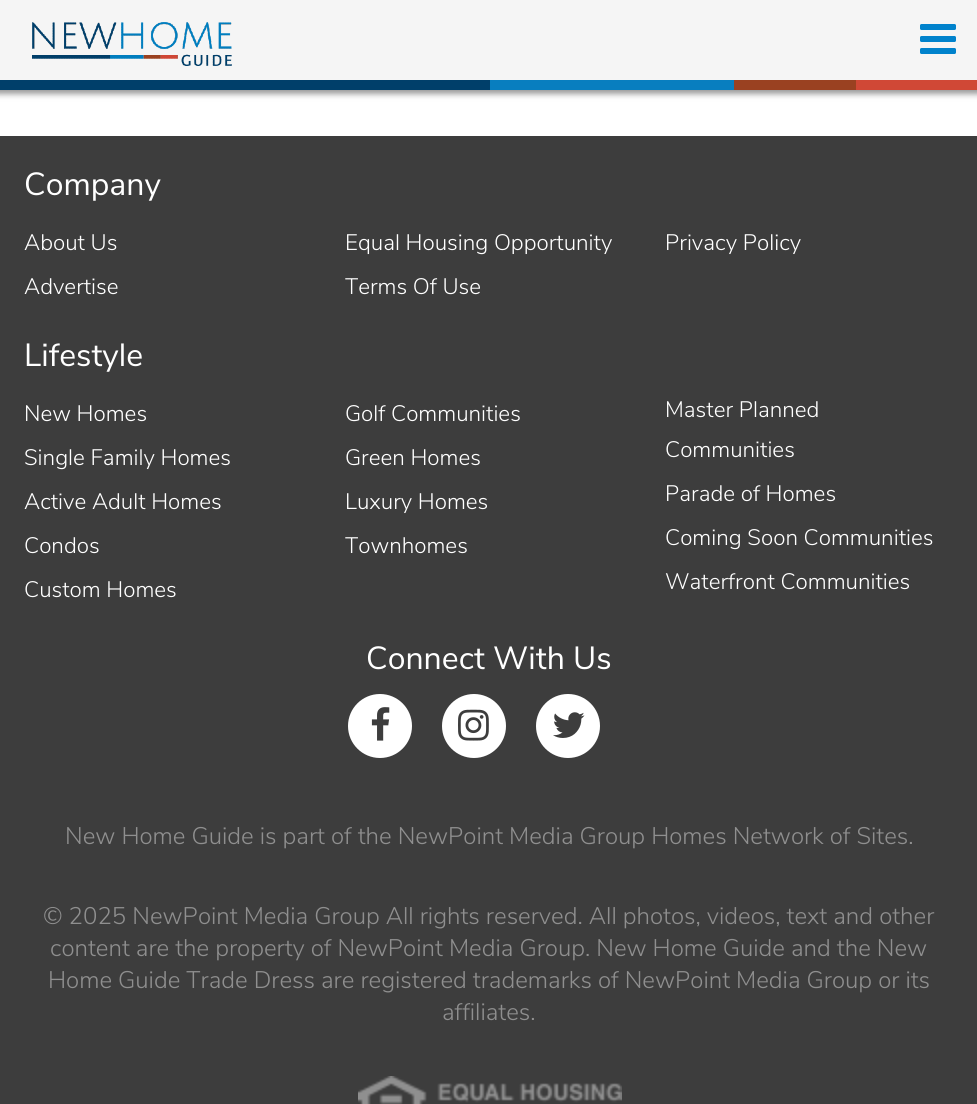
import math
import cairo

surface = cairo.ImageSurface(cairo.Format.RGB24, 977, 1104)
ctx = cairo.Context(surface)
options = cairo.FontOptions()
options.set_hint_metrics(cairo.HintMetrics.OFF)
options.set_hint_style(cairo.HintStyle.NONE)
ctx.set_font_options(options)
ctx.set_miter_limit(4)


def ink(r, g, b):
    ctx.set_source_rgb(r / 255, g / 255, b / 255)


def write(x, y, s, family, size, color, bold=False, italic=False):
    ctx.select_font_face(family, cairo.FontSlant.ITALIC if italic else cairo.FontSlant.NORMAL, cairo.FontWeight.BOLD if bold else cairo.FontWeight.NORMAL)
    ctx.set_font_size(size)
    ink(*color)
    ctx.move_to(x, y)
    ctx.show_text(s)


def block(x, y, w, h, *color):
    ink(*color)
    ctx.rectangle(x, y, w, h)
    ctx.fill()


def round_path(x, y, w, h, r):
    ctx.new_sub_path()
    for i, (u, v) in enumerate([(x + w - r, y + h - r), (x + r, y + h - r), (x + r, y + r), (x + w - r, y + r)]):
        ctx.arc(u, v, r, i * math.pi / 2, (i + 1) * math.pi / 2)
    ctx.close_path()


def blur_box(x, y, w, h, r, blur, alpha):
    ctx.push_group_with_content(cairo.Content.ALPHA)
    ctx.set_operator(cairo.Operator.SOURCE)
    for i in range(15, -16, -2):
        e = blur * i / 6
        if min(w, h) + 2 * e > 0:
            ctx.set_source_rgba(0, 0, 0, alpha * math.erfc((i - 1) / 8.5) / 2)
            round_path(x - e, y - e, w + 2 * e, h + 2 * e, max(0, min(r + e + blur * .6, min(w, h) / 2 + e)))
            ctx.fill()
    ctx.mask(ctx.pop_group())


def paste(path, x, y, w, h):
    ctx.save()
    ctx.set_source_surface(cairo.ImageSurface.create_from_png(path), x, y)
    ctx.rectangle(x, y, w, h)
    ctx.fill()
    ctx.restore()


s1 = dict(family="Nunito Sans", size=32, color=(255, 255, 255))
s2 = dict(family="Nunito Sans Light", size=22.4, color=(255, 255, 255))
s3 = dict(family="Nunito Sans Light", size=24, color=(143, 143, 143))

ink(255, 255, 255)
ctx.paint()
ink(0, 0, 0)
blur_box(-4, -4, 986, 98, 0, 3, 0.4)
block(0, 0, 977, 80, 245, 245, 245)
paste("pic1.png", 32, 22, 200, 44)
paste("pic2.png", 920, 24, 36, 30)
block(0, 80, 490, 10, 0, 63, 106)
block(490, 80, 244, 10, 8, 126, 191)
block(734, 80, 122, 10, 154, 65, 33)
block(856, 80, 121, 10, 208, 72, 54)
block(0, 136, 977, 968, 61, 61, 61)
write(24, 195, "Company", **s1)
write(24, 250, "About Us", **s2)
write(345, 250, "Equal Housing Opportunity", **s2)
write(665, 250, "Privacy Policy", **s2)
write(24, 294, "Advertise", **s2)
write(345, 294, "Terms Of Use", **s2)
write(24, 366, "Lifestyle", **s1)
write(24, 421, "New Homes", **s2)
write(345, 421, "Golf Communities", **s2)
write(665, 417, "Master Planned", **s2)
write(665, 457, "Communities", **s2)
write(24, 465, "Single Family Homes", **s2)
write(345, 465, "Green Homes", **s2)
write(24, 509, "Active Adult Homes", **s2)
write(345, 509, "Luxury Homes", **s2)
write(665, 501, "Parade of Homes", **s2)
write(24, 553, "Condos", **s2)
write(345, 553, "Townhomes", **s2)
write(665, 545, "Coming Soon Communities", **s2)
write(24, 597, "Custom Homes", **s2)
write(665, 589, "Waterfront Communities", **s2)
write(366, 669, "Connect With Us", **s1)
ctx.new_path()
ctx.arc(380, 726, 32, 0, 2 * math.pi)
ctx.fill()
paste("pic3.png", 371, 707, 19, 34)
ctx.arc(474, 726, 32, 0, 2 * math.pi)
ctx.fill()
paste("pic4.png", 458, 709, 31, 32)
ctx.arc(568, 726, 32, 0, 2 * math.pi)
ctx.fill()
paste("pic5.png", 553, 712, 32, 26)
write(65, 844, "New Home Guide is part of the NewPoint Media Group Homes Network of Sites.", **s3)
write(43, 924, "© 2025 NewPoint Media Group All rights reserved. All photos, videos, text and other", **s3)
write(50, 956, "content are the property of NewPoint Media Group. New Home Guide and the New", **s3)
write(48, 988, "Home Guide Trade Dress are registered trademarks of NewPoint Media Group or its", **s3)
write(442, 1020, "affiliates.", **s3)
paste("pic6.png", 358, 1076, 264, 28)
surface.write_to_png("screenshot.png")
